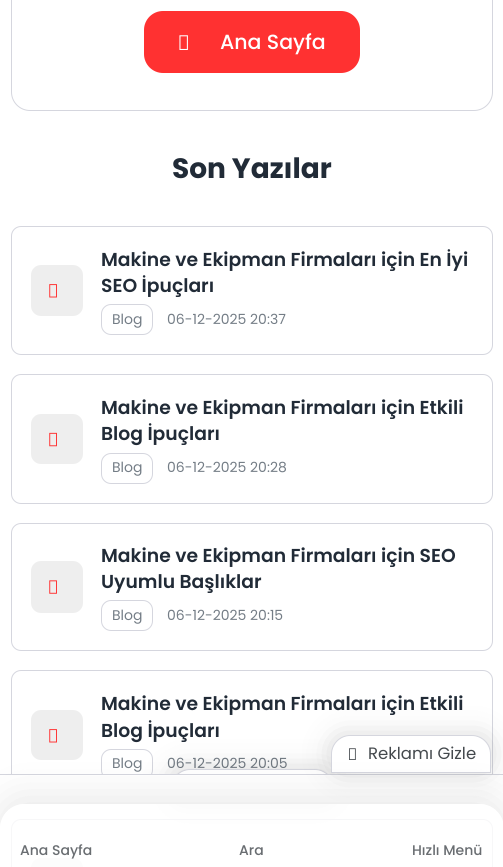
import math
import cairo

surface = cairo.ImageSurface(cairo.Format.RGB24, 503, 867)
ctx = cairo.Context(surface)
options = cairo.FontOptions()
options.set_hint_metrics(cairo.HintMetrics.OFF)
options.set_hint_style(cairo.HintStyle.NONE)
ctx.set_font_options(options)
ctx.set_miter_limit(4)


def ink(r, g, b):
    ctx.set_source_rgb(r / 255, g / 255, b / 255)


def write(x, y, s, family, size, color, bold=False, italic=False):
    ctx.select_font_face(family, cairo.FontSlant.ITALIC if italic else cairo.FontSlant.NORMAL, cairo.FontWeight.BOLD if bold else cairo.FontWeight.NORMAL)
    ctx.set_font_size(size)
    ink(*color)
    ctx.move_to(x, y)
    ctx.show_text(s)


def block(x, y, w, h, *color):
    ink(*color)
    ctx.rectangle(x, y, w, h)
    ctx.fill()


def round_path(x, y, w, h, r):
    ctx.new_sub_path()
    for i, (u, v) in enumerate([(x + w - r, y + h - r), (x + r, y + h - r), (x + r, y + r), (x + w - r, y + r)]):
        ctx.arc(u, v, r, i * math.pi / 2, (i + 1) * math.pi / 2)
    ctx.close_path()


def blur_box(x, y, w, h, r, blur, alpha):
    ctx.push_group_with_content(cairo.Content.ALPHA)
    ctx.set_operator(cairo.Operator.SOURCE)
    for i in range(15, -16, -2):
        e = blur * i / 6
        if min(w, h) + 2 * e > 0:
            ctx.set_source_rgba(0, 0, 0, alpha * math.erfc((i - 1) / 8.5) / 2)
            round_path(x - e, y - e, w + 2 * e, h + 2 * e, max(0, min(r + e + blur * .6, min(w, h) / 2 + e)))
            ctx.fill()
    ctx.mask(ctx.pop_group())


def paste(path, x, y, w, h):
    ctx.save()
    ctx.set_source_surface(cairo.ImageSurface.create_from_png(path), x, y)
    ctx.rectangle(x, y, w, h)
    ctx.fill()
    ctx.restore()


s1 = dict(family="Poppins Medium", size=20.5, color=(255, 255, 255))
s2 = dict(family="Poppins", size=28, color=(33, 43, 55), bold=True)
s3 = dict(family="Poppins SemiBold", size=18.75, color=(33, 43, 55))
s4 = dict(family="Poppins", size=14, color=(116, 125, 134))
s5 = dict(family="Poppins", size=16.5, color=(68, 73, 77))
s6 = dict(family="Poppins Medium", size=14, color=(105, 109, 113))

ink(255, 255, 255)
ctx.paint()
round_path(11.5, -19.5, 481, 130, 18.5)
ink(213, 214, 222)
ctx.set_line_width(1)
ctx.stroke()
ink(255, 49, 49)
round_path(144, 11, 216, 62, 19)
ctx.fill()
paste("pic1.png", 179, 35, 9, 15)
write(220, 49, "Ana Sayfa", **s1)
write(172, 178, "Son Yazılar", **s2)
round_path(11.5, 226.5, 481, 128, 9.5)
ink(213, 214, 222)
ctx.stroke()
ink(238, 238, 238)
round_path(31, 265, 52, 51, 10)
ctx.fill()
paste("pic2.png", 49, 284, 8, 14)
write(101, 266, "Makine ve Ekipman Firmaları için En İyi", **s3)
write(101, 292, "SEO İpuçları", **s3)
round_path(101.5, 304.5, 51, 30, 9.5)
ink(213, 214, 222)
ctx.stroke()
write(112, 324, "Blog", **s4)
write(167, 324, "06-12-2025 20:37", **s4)
round_path(11.5, 374.5, 481, 129, 9.5)
ink(213, 214, 222)
ctx.stroke()
ink(238, 238, 238)
round_path(31, 414, 52, 50, 10)
ctx.fill()
paste("pic3.png", 49, 432, 8, 15)
write(101, 414, "Makine ve Ekipman Firmaları için Etkili", **s3)
write(101, 440, "Blog İpuçları", **s3)
round_path(101.5, 453.5, 51, 30, 9.5)
ink(213, 214, 222)
ctx.stroke()
write(112, 472, "Blog", **s4)
write(167, 472, "06-12-2025 20:28", **s4)
round_path(11.5, 523.5, 481, 127, 9.5)
ink(213, 214, 222)
ctx.stroke()
ink(238, 238, 238)
round_path(31, 561, 52, 52, 10)
ctx.fill()
paste("pic4.png", 49, 580, 8, 14)
write(101, 562, "Makine ve Ekipman Firmaları için SEO", **s3)
write(101, 588, "Uyumlu Başlıklar", **s3)
round_path(101.5, 600.5, 51, 30, 9.5)
ink(213, 214, 222)
ctx.stroke()
write(112, 620, "Blog", **s4)
write(167, 620, "06-12-2025 20:15", **s4)
round_path(11.5, 670.5, 481, 129, 9.5)
ink(213, 214, 222)
ctx.stroke()
ink(238, 238, 238)
round_path(31, 710, 52, 50, 10)
ctx.fill()
paste("pic2.png", 49, 729, 8, 14)
write(101, 710, "Makine ve Ekipman Firmaları için Etkili", **s3)
write(101, 737, "Blog İpuçları", **s3)
round_path(101.5, 749.5, 51, 30, 9.5)
ink(213, 214, 222)
ctx.stroke()
write(112, 768, "Blog", **s4)
write(167, 768, "06-12-2025 20:05", **s4)
round_path(11.5, 819.5, 481, 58, 9.5)
ink(213, 214, 222)
ctx.stroke()
ink(238, 238, 238)
round_path(31, 858, 52, 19, 10)
ctx.fill()
ink(0, 0, 0)
blur_box(174, 771, 157, 30, 16, 15, 0.17)
ink(255, 255, 255)
ctx.new_path()
ctx.move_to(190, 769.5)
ctx.line_to(315, 769.5)
ctx.curve_to(325, 769.5, 333.5, 778, 333.5, 788)
ctx.line_to(333.5, 803.5)
ctx.line_to(171.5, 803.5)
ctx.line_to(171.5, 788)
ctx.curve_to(171.5, 778, 180, 769.5, 190, 769.5)
ctx.close_path()
ctx.fill_preserve()
ink(213, 214, 222)
ctx.stroke()
block(11, 775, 482, 29, 255, 255, 255)
block(0, 774, 503, 1, 213, 214, 222)
ink(0, 0, 0)
blur_box(334, 738, 155, 32, 16, 15, 0.17)
ink(255, 255, 255)
ctx.new_path()
ctx.move_to(350, 735.5)
ctx.line_to(472, 735.5)
ctx.curve_to(482, 735.5, 490.5, 744, 490.5, 754)
ctx.line_to(490.5, 772.5)
ctx.line_to(331.5, 772.5)
ctx.line_to(331.5, 754)
ctx.curve_to(331.5, 744, 340, 735.5, 350, 735.5)
ctx.close_path()
ctx.fill_preserve()
ink(213, 214, 222)
ctx.stroke()
paste("pic5.png", 349, 748, 7, 12)
write(368, 759, "Reklamı Gizle", **s5)
ctx.save()
ctx.set_fill_rule(cairo.FillRule.EVEN_ODD)
ctx.new_path()
ctx.move_to(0, 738)
ctx.line_to(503, 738)
ctx.line_to(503, 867)
ctx.line_to(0, 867)
ctx.close_path()
ctx.move_to(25, 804)
ctx.line_to(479, 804)
ctx.curve_to(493, 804, 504, 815, 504, 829)
ctx.line_to(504, 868)
ctx.line_to(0, 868)
ctx.line_to(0, 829)
ctx.curve_to(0, 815, 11, 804, 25, 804)
ctx.close_path()
ctx.clip()
ink(0, 0, 0)
blur_box(0, 799, 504, 64, 25, 20, 0.1)
ctx.restore()
ctx.set_source_rgba(1, 1, 1, 0.8)
ctx.new_path()
ctx.move_to(25, 804)
ctx.line_to(479, 804)
ctx.curve_to(493, 804, 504, 815, 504, 829)
ctx.line_to(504, 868)
ctx.line_to(0, 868)
ctx.line_to(0, 829)
ctx.curve_to(0, 815, 11, 804, 25, 804)
ctx.close_path()
ctx.fill()
write(20, 855, "Ana Sayfa", **s6)
write(239, 855, "Ara", **s6)
write(412, 855, "Hızlı Menü", **s6)
surface.write_to_png("screenshot.png")
